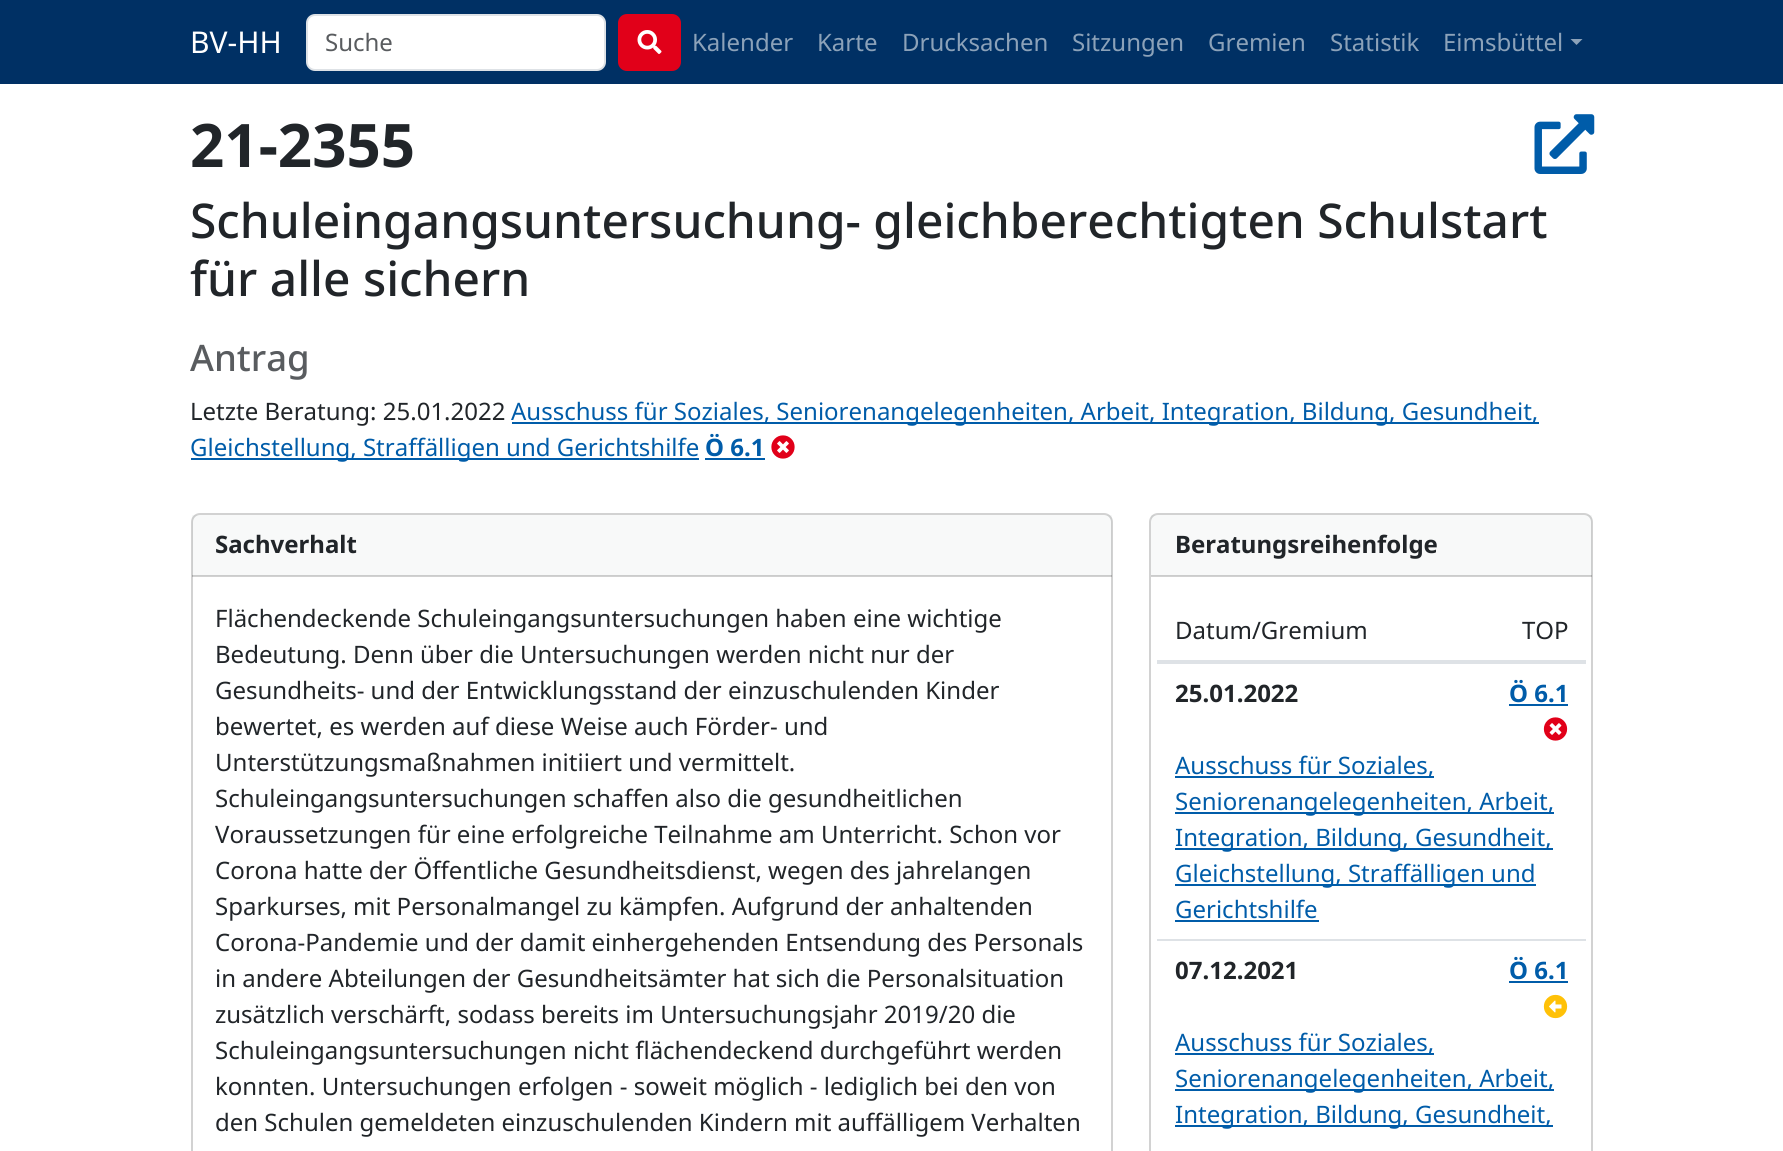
import math
import cairo

surface = cairo.ImageSurface(cairo.Format.RGB24, 1783, 1151)
ctx = cairo.Context(surface)
options = cairo.FontOptions()
options.set_hint_metrics(cairo.HintMetrics.OFF)
options.set_hint_style(cairo.HintStyle.NONE)
ctx.set_font_options(options)
ctx.set_miter_limit(4)


def ink(r, g, b):
    ctx.set_source_rgb(r / 255, g / 255, b / 255)


def write(x, y, s, family, size, color, bold=False, italic=False):
    ctx.select_font_face(family, cairo.FontSlant.ITALIC if italic else cairo.FontSlant.NORMAL, cairo.FontWeight.BOLD if bold else cairo.FontWeight.NORMAL)
    ctx.set_font_size(size)
    ink(*color)
    ctx.move_to(x, y)
    ctx.show_text(s)


def block(x, y, w, h, *color):
    ink(*color)
    ctx.rectangle(x, y, w, h)
    ctx.fill()


def round_path(x, y, w, h, r):
    ctx.new_sub_path()
    for i, (u, v) in enumerate([(x + w - r, y + h - r), (x + r, y + h - r), (x + r, y + r), (x + w - r, y + r)]):
        ctx.arc(u, v, r, i * math.pi / 2, (i + 1) * math.pi / 2)
    ctx.close_path()


def paste(path, x, y, w, h):
    ctx.save()
    ctx.set_source_surface(cairo.ImageSurface.create_from_png(path), x, y)
    ctx.rectangle(x, y, w, h)
    ctx.fill()
    ctx.restore()


s1 = dict(family="Noto Sans", size=30, color=(255, 255, 255))
s2 = dict(family="Noto Sans", size=24, color=(89, 92, 95))
s3 = dict(family="Noto Sans", size=24, color=(140, 162, 185))
s4 = dict(family="Noto Sans", size=60, color=(33, 37, 41), bold=True)
s5 = dict(family="Noto Sans Medium", size=47.85, color=(33, 37, 41))
s6 = dict(family="Noto Sans Medium", size=36.5, color=(89, 92, 95))
s7 = dict(family="Noto Sans", size=24, color=(33, 37, 41))
s8 = dict(family="Noto Sans", size=24, color=(0, 92, 169))
s9 = dict(family="Noto Sans", size=24, color=(0, 92, 169), bold=True)
s10 = dict(family="Noto Sans", size=24, color=(33, 37, 41), bold=True)

ink(255, 255, 255)
ctx.paint()
block(0, 0, 1783, 84, 0, 48, 100)
write(190, 53, "BV-HH", **s1)
round_path(307, 15, 298, 55, 8)
ctx.fill_preserve()
ink(222, 226, 230)
ctx.stroke()
write(325, 51, "Suche", **s2)
ink(225, 0, 25)
round_path(619, 15, 61, 55, 8)
ctx.fill_preserve()
ctx.stroke()
paste("pic1.png", 637, 30, 25, 24)
write(692, 51, "Kalender", **s3)
write(817, 51, "Karte", **s3)
write(902, 51, "Drucksachen", **s3)
write(1072, 51, "Sitzungen", **s3)
write(1208, 51, "Gremien", **s3)
write(1330, 51, "Statistik", **s3)
write(1443, 51, "Eimsbüttel", **s3)
ctx.new_path()
ctx.move_to(1570.5, 39)
ctx.line_to(1582.5, 39)
ctx.line_to(1576.5, 45)
ctx.close_path()
ctx.fill()
write(190, 167, "21-2355", **s4)
paste("pic2.png", 1534, 114, 61, 60)
write(190, 238, "Schuleingangsuntersuchung- gleichberechtigten Schulstart", **s5)
write(190, 296, "für alle sichern", **s5)
write(190, 371, "Antrag", **s6)
write(190, 420, "Letzte Beratung: 25.01.2022", **s7)
block(512, 422, 1027, 2, 0, 92, 169)
write(511, 420, "Ausschuss für Soziales, Seniorenangelegenheiten, Arbeit, Integration, Bildung, Gesundheit,", **s8)
block(191, 458, 508, 2, 0, 92, 169)
write(190, 456, "Gleichstellung, Straffälligen und Gerichtshilfe", **s8)
write(705, 456, "Ö 6.1", **s9)
block(705, 458, 60, 2, 0, 92, 169)
paste("pic3.png", 771, 435, 24, 24)
round_path(192, 514, 920, 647, 8)
ink(210, 210, 210)
ctx.stroke()
ctx.set_source_rgba(0.129, 0.145, 0.161, 0.03)
ctx.rectangle(192, 515, 920, 61)
ctx.fill()
ctx.set_source_rgba(0, 0, 0, 0.18)
ctx.rectangle(192, 575, 920, 2)
ctx.fill()
write(215, 553, "Sachverhalt", **s10)
write(215, 627, "Flächendeckende Schuleingangsuntersuchungen haben eine wichtige", **s7)
write(215, 663, "Bedeutung. Denn über die Untersuchungen werden nicht nur der", **s7)
write(215, 699, "Gesundheits- und der Entwicklungsstand der einzuschulenden Kinder", **s7)
write(215, 735, "bewertet, es werden auf diese Weise auch Förder- und", **s7)
write(215, 771, "Unterstützungsmaßnahmen initiiert und vermittelt.", **s7)
write(215, 807, "Schuleingangsuntersuchungen schaffen also die gesundheitlichen", **s7)
write(215, 843, "Voraussetzungen für eine erfolgreiche Teilnahme am Unterricht. Schon vor", **s7)
write(215, 879, "Corona hatte der Öffentliche Gesundheitsdienst, wegen des jahrelangen", **s7)
write(215, 915, "Sparkurses, mit Personalmangel zu kämpfen. Aufgrund der anhaltenden", **s7)
write(215, 951, "Corona-Pandemie und der damit einhergehenden Entsendung des Personals", **s7)
write(215, 987, "in andere Abteilungen der Gesundheitsämter hat sich die Personalsituation", **s7)
write(215, 1023, "zusätzlich verschärft, sodass bereits im Untersuchungsjahr 2019/20 die", **s7)
write(215, 1059, "Schuleingangsuntersuchungen nicht flächendeckend durchgeführt werden", **s7)
write(215, 1095, "konnten. Untersuchungen erfolgen - soweit möglich - lediglich bei den von", **s7)
write(215, 1131, "den Schulen gemeldeten einzuschulenden Kindern mit auffälligem Verhalten", **s7)
round_path(1150, 514, 442, 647, 8)
ink(210, 210, 210)
ctx.stroke()
ctx.set_source_rgba(0.129, 0.145, 0.161, 0.03)
ctx.rectangle(1151, 515, 441, 61)
ctx.fill()
ctx.set_source_rgba(0, 0, 0, 0.18)
ctx.rectangle(1151, 575, 441, 2)
ctx.fill()
write(1175, 553, "Beratungsreihenfolge", **s10)
block(1157, 660, 429, 2, 222, 226, 230)
write(1175, 639, "Datum/Gremium", **s7)
write(1522, 639, "TOP", **s7)
block(1157, 662, 429, 2, 222, 226, 230)
write(1175, 702, "25.01.2022", **s10)
write(1509, 702, "Ö 6.1", **s9)
block(1509, 704, 59, 2, 0, 92, 169)
paste("pic4.png", 1543, 717, 25, 24)
block(1175, 776, 259, 2, 0, 92, 169)
write(1175, 774, "Ausschuss für Soziales,", **s8)
block(1175, 812, 379, 2, 0, 92, 169)
write(1175, 810, "Seniorenangelegenheiten, Arbeit,", **s8)
block(1175, 848, 378, 2, 0, 92, 169)
write(1175, 846, "Integration, Bildung, Gesundheit,", **s8)
block(1175, 884, 361, 2, 0, 92, 169)
write(1175, 882, "Gleichstellung, Straffälligen und", **s8)
write(1175, 918, "Gerichtshilfe", **s8)
block(1175, 920, 144, 2, 0, 92, 169)
block(1157, 939, 429, 2, 222, 226, 230)
write(1175, 979, "07.12.2021", **s10)
write(1509, 979, "Ö 6.1", **s9)
block(1509, 981, 59, 2, 0, 92, 169)
paste("pic5.png", 1543, 994, 25, 25)
block(1175, 1053, 259, 2, 0, 92, 169)
write(1175, 1051, "Ausschuss für Soziales,", **s8)
block(1175, 1089, 379, 2, 0, 92, 169)
write(1175, 1087, "Seniorenangelegenheiten, Arbeit,", **s8)
block(1175, 1125, 378, 2, 0, 92, 169)
write(1175, 1123, "Integration, Bildung, Gesundheit,", **s8)
surface.write_to_png("screenshot.png")
